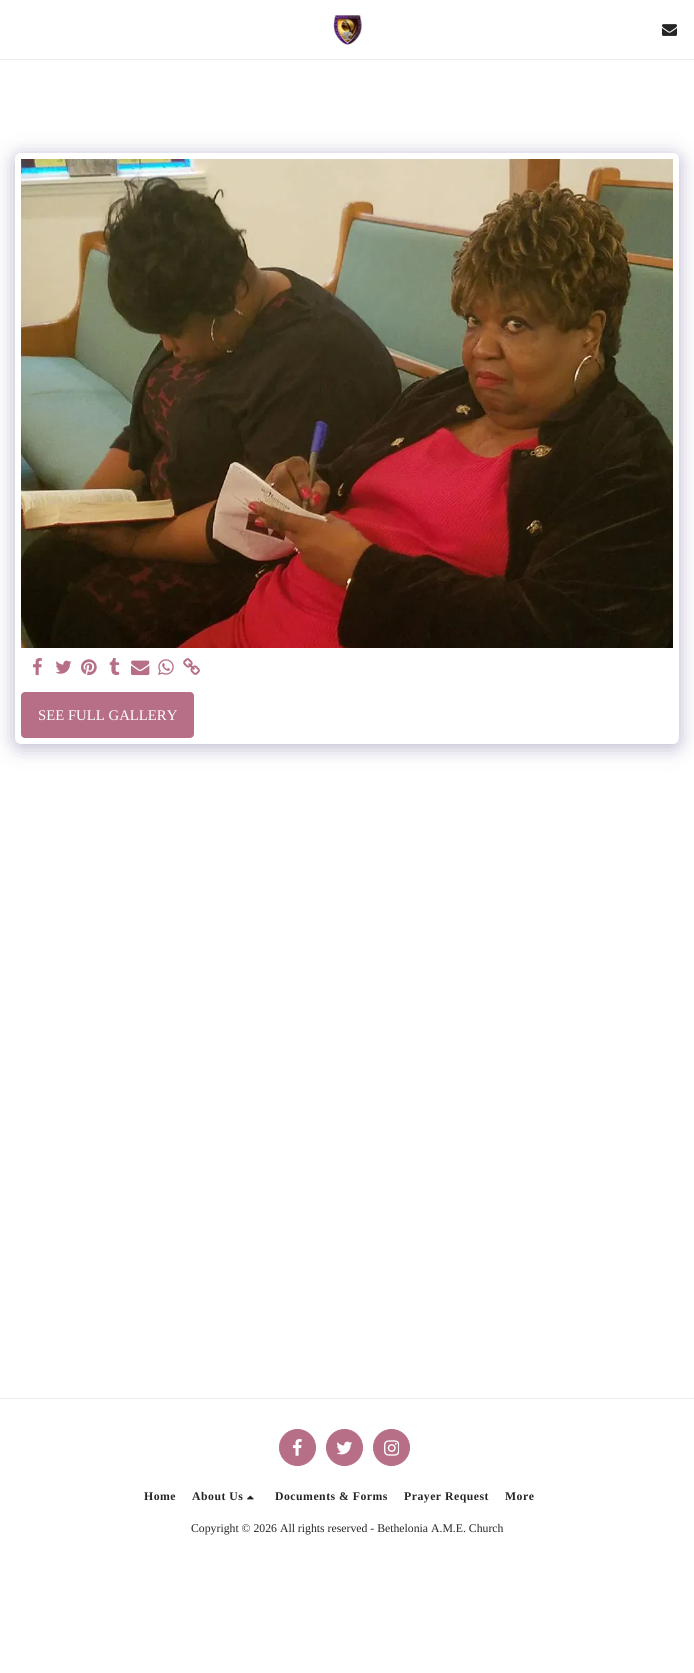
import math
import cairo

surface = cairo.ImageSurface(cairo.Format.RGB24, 694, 1673)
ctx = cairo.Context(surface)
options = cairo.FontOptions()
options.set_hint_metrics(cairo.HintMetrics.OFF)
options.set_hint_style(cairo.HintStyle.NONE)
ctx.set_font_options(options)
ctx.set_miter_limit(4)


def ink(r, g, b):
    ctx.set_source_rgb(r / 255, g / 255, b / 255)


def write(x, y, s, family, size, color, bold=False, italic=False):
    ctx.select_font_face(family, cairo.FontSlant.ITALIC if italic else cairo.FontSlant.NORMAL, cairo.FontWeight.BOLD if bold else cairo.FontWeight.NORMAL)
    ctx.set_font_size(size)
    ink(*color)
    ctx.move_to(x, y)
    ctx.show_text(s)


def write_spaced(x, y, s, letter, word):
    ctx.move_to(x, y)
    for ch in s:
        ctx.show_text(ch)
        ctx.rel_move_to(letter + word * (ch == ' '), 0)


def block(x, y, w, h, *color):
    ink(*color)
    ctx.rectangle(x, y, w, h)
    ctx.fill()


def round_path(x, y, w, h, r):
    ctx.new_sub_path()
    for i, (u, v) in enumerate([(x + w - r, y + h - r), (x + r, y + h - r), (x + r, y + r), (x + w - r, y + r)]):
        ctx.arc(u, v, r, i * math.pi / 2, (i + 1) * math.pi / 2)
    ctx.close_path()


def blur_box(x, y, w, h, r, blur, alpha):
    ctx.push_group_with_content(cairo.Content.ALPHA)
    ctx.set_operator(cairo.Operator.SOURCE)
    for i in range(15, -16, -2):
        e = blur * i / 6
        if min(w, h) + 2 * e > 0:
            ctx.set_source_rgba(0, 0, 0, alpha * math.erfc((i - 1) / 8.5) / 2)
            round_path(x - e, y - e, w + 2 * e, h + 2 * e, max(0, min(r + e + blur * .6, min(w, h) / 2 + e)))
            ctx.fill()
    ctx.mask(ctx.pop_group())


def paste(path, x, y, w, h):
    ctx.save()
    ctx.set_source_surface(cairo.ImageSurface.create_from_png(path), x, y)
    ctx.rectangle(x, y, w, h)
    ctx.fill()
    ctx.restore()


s1 = dict(family="Liberation Serif", size=14.75, color=(255, 255, 255))
s2 = dict(family="Liberation Serif", size=11.75, color=(37, 37, 37))

ink(255, 255, 255)
ctx.paint()
block(0, 59, 694, 1, 235, 235, 235)
paste("pic1.png", 333, 15, 29, 30)
paste("pic2.png", 662, 24, 15, 12)
ink(77, 63, 122)
blur_box(15, 156, 664, 591, 6, 10, 0.4)
ink(255, 255, 255)
round_path(15, 153, 664, 591, 6)
ctx.fill()
paste("pic3.png", 21, 159, 652, 489)
paste("pic4.png", 33, 658, 9, 18)
paste("pic5.png", 55, 660, 17, 14)
paste("pic6.png", 81, 659, 16, 17)
paste("pic7.png", 109, 658, 11, 18)
paste("pic8.png", 131, 660, 19, 16)
paste("pic9.png", 158, 659, 16, 16)
paste("pic10.png", 183, 658, 17, 17)
ink(182, 111, 134)
round_path(21.5, 692.5, 172, 45, 3.5)
ctx.fill_preserve()
ctx.set_line_width(1)
ctx.stroke()
write(38, 720, "SEE FULL GALLERY", **s1)
block(0, 1398, 694, 1, 235, 235, 235)
ink(182, 111, 134)
ctx.new_path()
ctx.arc(297.5, 1447.5, 18, 0, 2 * math.pi)
ctx.fill_preserve()
ctx.stroke()
paste("pic11.png", 292, 1439, 10, 17)
ctx.arc(344.5, 1447.5, 18, 0, 2 * math.pi)
ctx.fill_preserve()
ctx.stroke()
paste("pic12.png", 336, 1441, 16, 14)
ctx.arc(391.5, 1447.5, 18, 0, 2 * math.pi)
ctx.fill_preserve()
ctx.stroke()
paste("pic13.png", 384, 1440, 15, 16)
ctx.select_font_face("Liberation Serif", cairo.FontSlant.NORMAL, cairo.FontWeight.BOLD)
ctx.set_font_size(11.75)
ink(37, 37, 37)
write_spaced(144, 1500, "Home", 0.5, 0)
write_spaced(192, 1500, "About Us", 0.5, 0)
paste("pic14.png", 247, 1495, 7, 5)
write_spaced(275, 1500, "Documents & Forms", 0.5, 0)
write_spaced(404, 1500, "Prayer Request", 0.5, 0)
write_spaced(505, 1500, "More", 0.5, 0)
write(191, 1532, "Copyright © 2026 All rights reserved - Bethelonia A.M.E. Church", **s2)
surface.write_to_png("screenshot.png")
